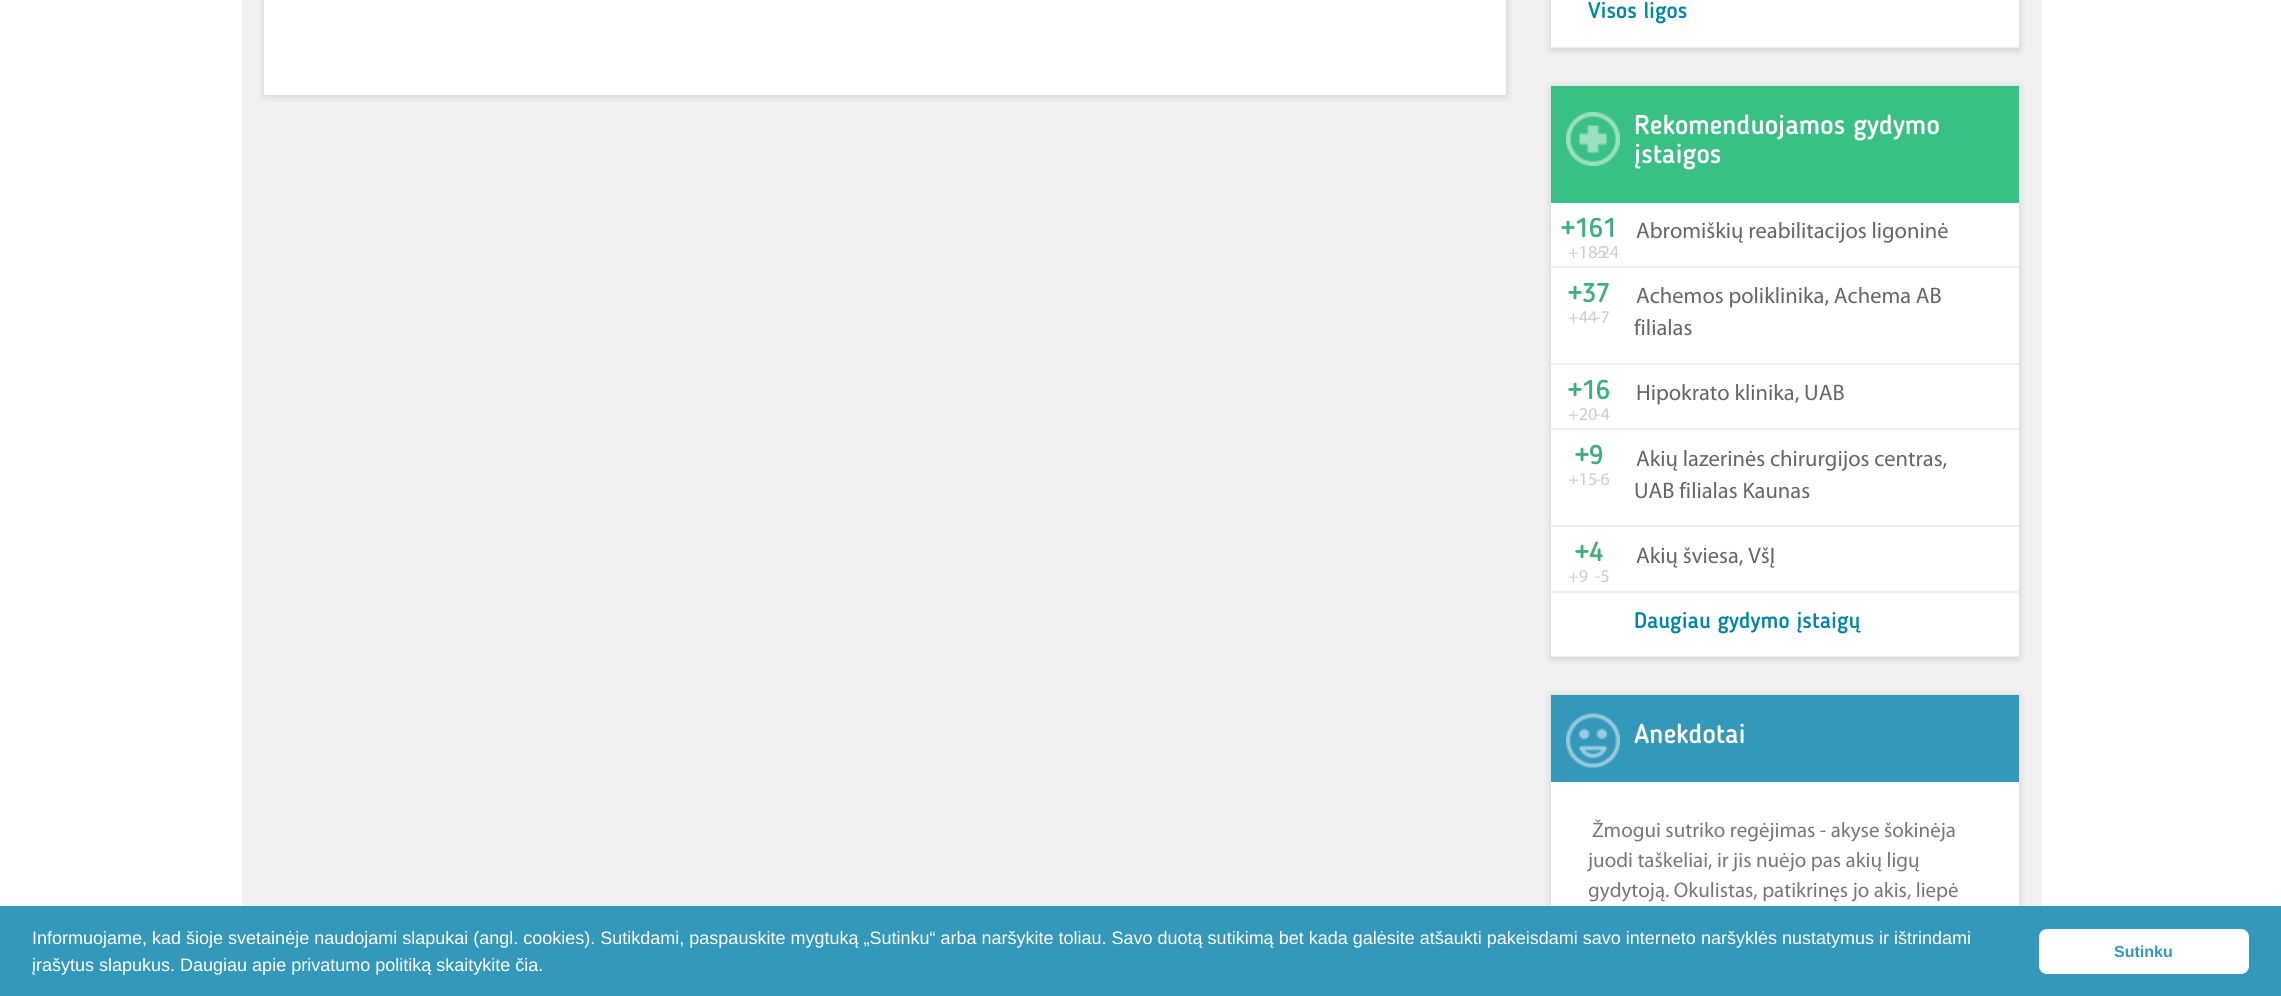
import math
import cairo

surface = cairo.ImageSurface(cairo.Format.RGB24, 2281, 996)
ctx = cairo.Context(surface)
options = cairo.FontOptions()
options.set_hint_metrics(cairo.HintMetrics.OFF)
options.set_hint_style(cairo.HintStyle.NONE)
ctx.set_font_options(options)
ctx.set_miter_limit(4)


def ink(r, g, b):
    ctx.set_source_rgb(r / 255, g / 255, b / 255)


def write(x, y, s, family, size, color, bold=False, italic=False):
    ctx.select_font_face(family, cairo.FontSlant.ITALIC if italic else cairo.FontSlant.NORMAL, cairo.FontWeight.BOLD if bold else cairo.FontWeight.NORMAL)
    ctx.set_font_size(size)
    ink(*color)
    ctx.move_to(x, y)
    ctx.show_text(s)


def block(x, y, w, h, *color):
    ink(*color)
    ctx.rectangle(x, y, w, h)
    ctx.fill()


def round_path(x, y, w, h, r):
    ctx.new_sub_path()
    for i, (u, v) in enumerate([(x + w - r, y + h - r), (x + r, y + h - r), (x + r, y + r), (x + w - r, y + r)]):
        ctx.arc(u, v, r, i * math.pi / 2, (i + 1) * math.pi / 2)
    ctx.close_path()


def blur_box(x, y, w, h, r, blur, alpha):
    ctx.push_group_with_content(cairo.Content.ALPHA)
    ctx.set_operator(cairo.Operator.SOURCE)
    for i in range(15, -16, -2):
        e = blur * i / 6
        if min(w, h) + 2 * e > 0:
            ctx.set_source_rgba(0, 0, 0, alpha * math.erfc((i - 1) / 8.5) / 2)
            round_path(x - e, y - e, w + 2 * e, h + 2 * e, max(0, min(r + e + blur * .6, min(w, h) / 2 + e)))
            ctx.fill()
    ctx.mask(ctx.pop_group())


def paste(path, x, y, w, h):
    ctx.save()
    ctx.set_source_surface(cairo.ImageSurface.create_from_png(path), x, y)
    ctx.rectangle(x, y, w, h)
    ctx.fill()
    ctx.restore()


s1 = dict(family="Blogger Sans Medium", size=22.5, color=(0, 134, 168))
s2 = dict(family="Blogger Sans Medium", size=27, color=(255, 255, 255))
s3 = dict(family="Blogger Sans Medium", size=27, color=(63, 176, 124))
s4 = dict(family="Myriad", size=18, color=(204, 204, 204))
s5 = dict(family="Myriad", size=22.5, color=(102, 102, 102))
s6 = dict(family="Myriad", size=21, color=(119, 119, 119))
s7 = dict(family="Liberation Sans", size=18, color=(255, 255, 255))
s8 = dict(family="Liberation Sans", size=16, color=(51, 152, 186), bold=True)

ink(255, 255, 255)
ctx.paint()
block(242, 0, 1800, 906, 241, 241, 241)
ink(0, 0, 0)
blur_box(264, -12, 1242, 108, 0, 4, 0.15)
block(264, 0, 1242, 95, 255, 255, 255)
ink(0, 0, 0)
blur_box(1551, -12, 468, 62, 0, 4, 0.15)
block(1551, 0, 468, 47, 255, 255, 255)
block(1551, 47, 468, 1, 238, 238, 238)
write(1588, 18, "Visos ligos", **s1)
ink(0, 0, 0)
blur_box(1551, 87, 468, 572, 0, 4, 0.15)
block(1551, 203, 468, 453, 255, 255, 255)
block(1551, 86, 468, 117, 56, 192, 133)
paste("pic1.png", 1566, 112, 54, 54)
write(1634, 134, "Rekomenduojamos gydymo", **s2)
write(1634, 163, "įstaigos", **s2)
write(1561, 237, "+161", **s3)
write(1568, 258, "+185", **s4)
write(1595, 258, "-24", **s4)
block(1551, 266, 468, 2, 238, 238, 238)
write(1636, 238, "Abromiškių reabilitacijos ligoninė", **s5)
write(1568, 302, "+37", **s3)
write(1568, 323, "+44", **s4)
write(1595, 323, "-7", **s4)
block(1551, 363, 468, 2, 238, 238, 238)
write(1636, 303, "Achemos poliklinika, Achema AB", **s5)
write(1634, 335, "filialas", **s5)
write(1568, 399, "+16", **s3)
write(1568, 420, "+20", **s4)
write(1595, 420, "-4", **s4)
block(1551, 428, 468, 2, 238, 238, 238)
write(1636, 400, "Hipokrato klinika, UAB", **s5)
write(1575, 464, "+9", **s3)
write(1568, 485, "+15", **s4)
write(1595, 485, "-6", **s4)
block(1551, 525, 468, 2, 238, 238, 238)
write(1636, 466, "Akių lazerinės chirurgijos centras,", **s5)
write(1634, 498, "UAB filialas Kaunas", **s5)
write(1575, 561, "+4", **s3)
write(1568, 582, "+9", **s4)
write(1595, 582, "-5", **s4)
block(1551, 591, 468, 2, 238, 238, 238)
write(1636, 563, "Akių šviesa, VšĮ", **s5)
block(1551, 656, 468, 1, 238, 238, 238)
write(1634, 628, "Daugiau gydymo įstaigų", **s1)
ink(0, 0, 0)
blur_box(1551, 696, 468, 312, 0, 4, 0.15)
block(1551, 782, 468, 124, 255, 255, 255)
block(1551, 695, 468, 87, 51, 152, 186)
paste("pic2.png", 1566, 713, 54, 55)
write(1634, 743, "Anekdotai", **s2)
write(1592, 837, "Žmogui sutriko regėjimas - akyse šokinėja", **s6)
write(1588, 867, "juodi taškeliai, ir jis nuėjo pas akių ligų", **s6)
write(1588, 897, "gydytoją. Okulistas, patikrinęs jo akis, liepė", **s6)
block(0, 906, 2281, 90, 51, 152, 186)
write(32, 944, "Informuojame, kad šioje svetainėje naudojami slapukai (angl. cookies). Sutikdami, paspauskite mygtuką „Sutinku“ arba naršykite toliau. Savo duotą sutikimą bet kada galėsite atšaukti pakeisdami savo interneto naršyklės nustatymus ir ištrindami", **s7)
write(32, 971, "įrašytus slapukus. Daugiau apie privatumo politiką skaitykite čia.", **s7)
round_path(2040.5, 930.5, 207, 42, 6.5)
ctx.fill_preserve()
ctx.set_line_width(3)
ctx.stroke()
write(2114, 957, "Sutinku", **s8)
surface.write_to_png("screenshot.png")
